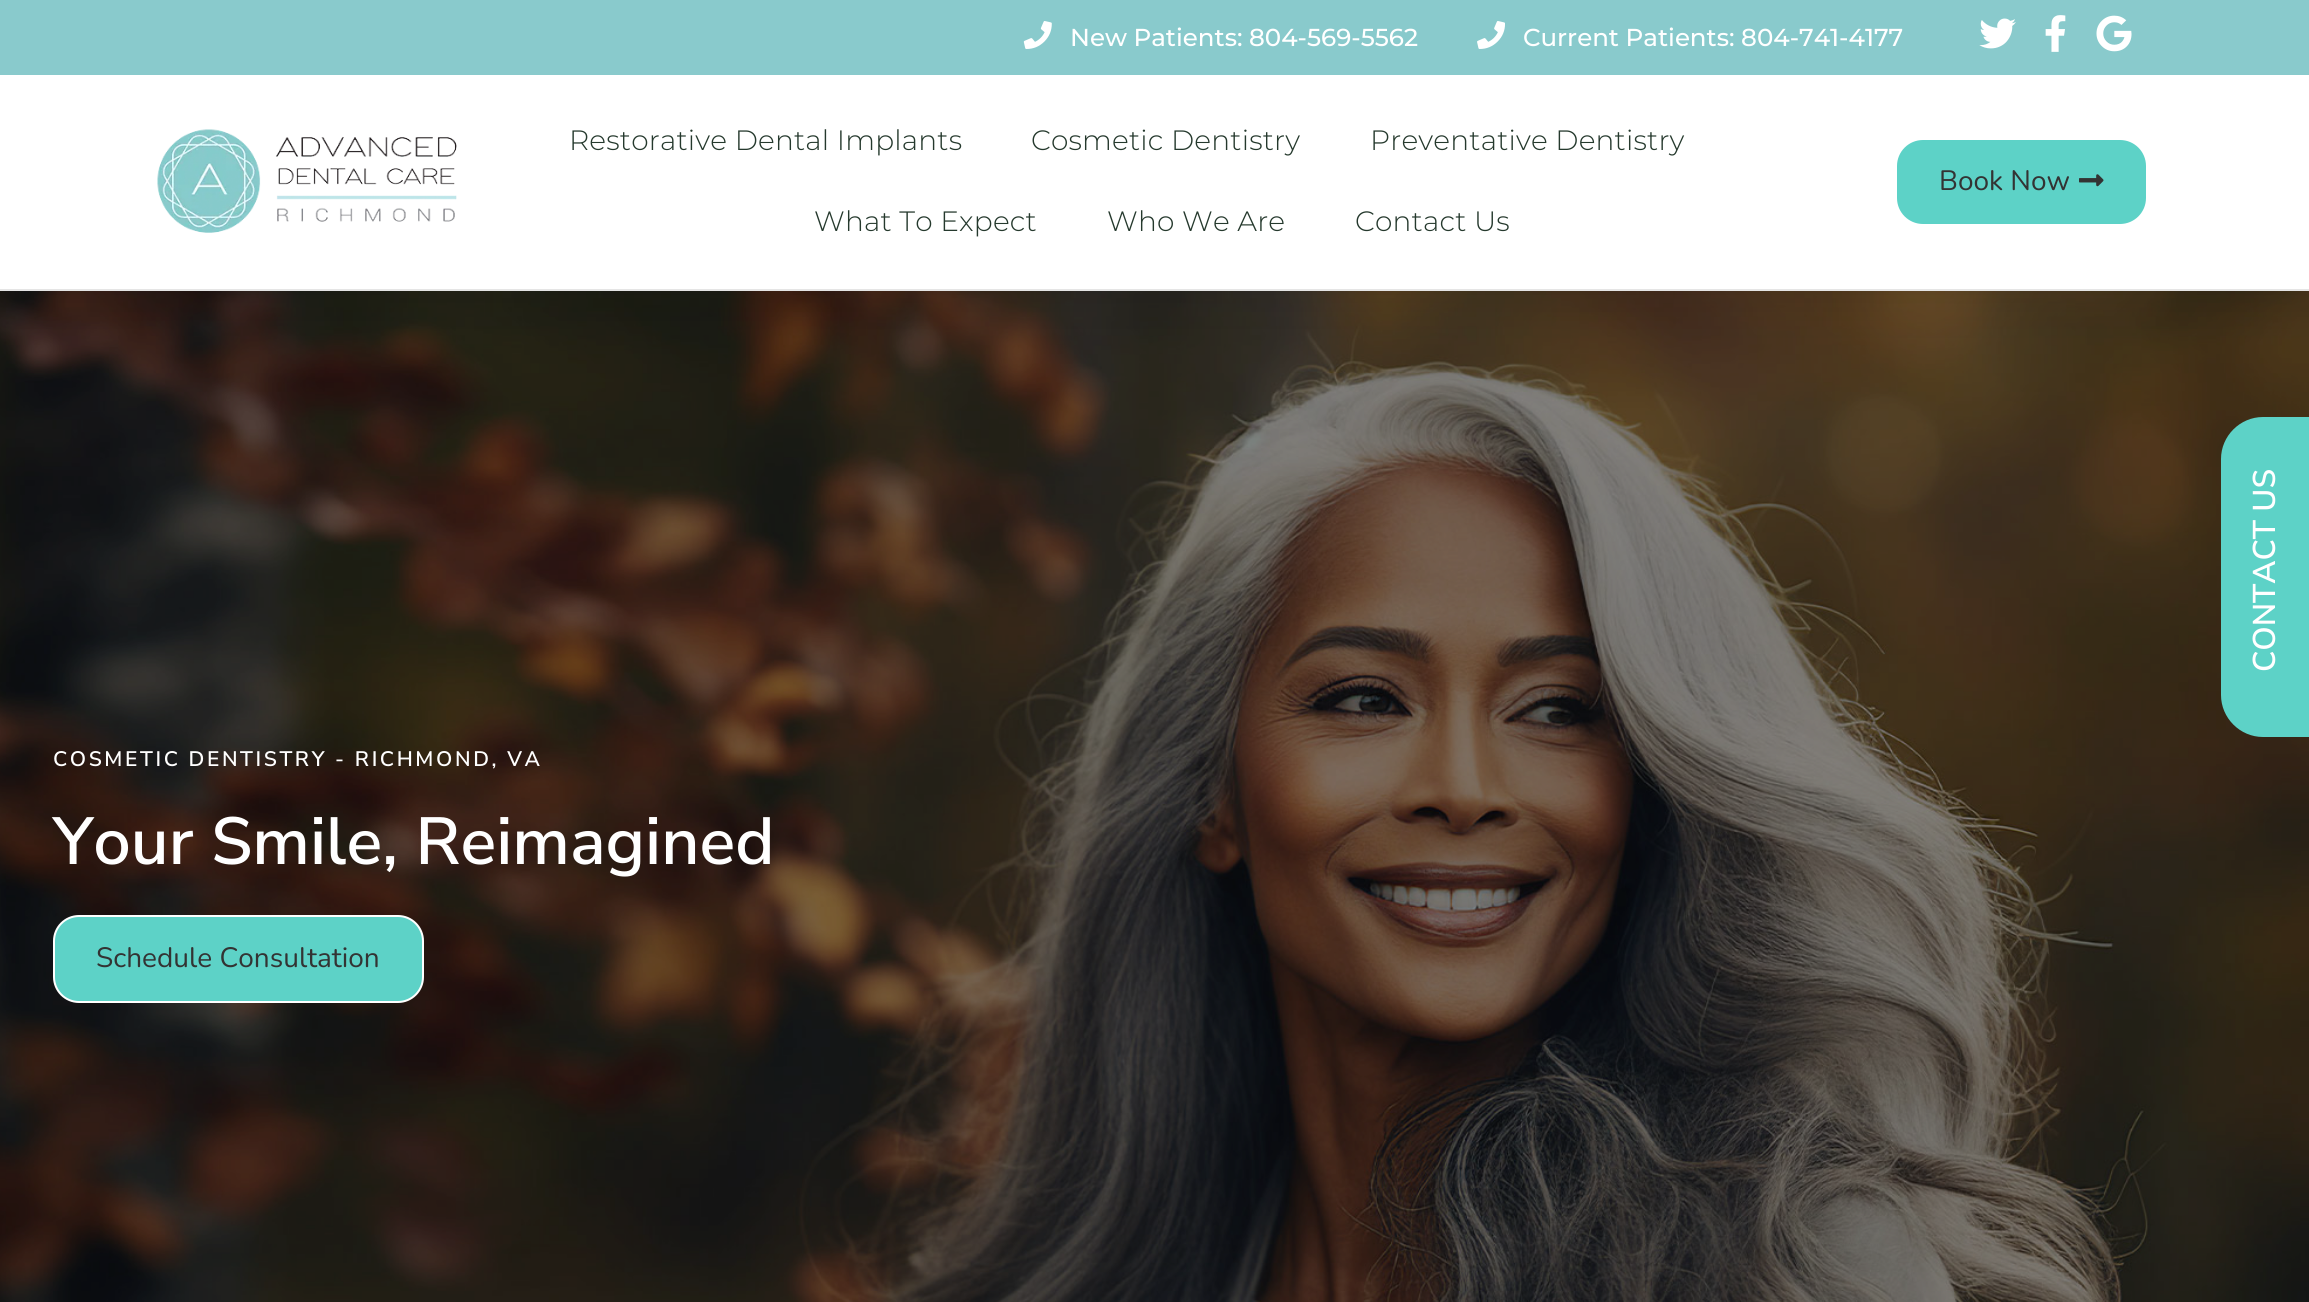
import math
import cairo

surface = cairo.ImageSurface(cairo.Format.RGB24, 2309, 1302)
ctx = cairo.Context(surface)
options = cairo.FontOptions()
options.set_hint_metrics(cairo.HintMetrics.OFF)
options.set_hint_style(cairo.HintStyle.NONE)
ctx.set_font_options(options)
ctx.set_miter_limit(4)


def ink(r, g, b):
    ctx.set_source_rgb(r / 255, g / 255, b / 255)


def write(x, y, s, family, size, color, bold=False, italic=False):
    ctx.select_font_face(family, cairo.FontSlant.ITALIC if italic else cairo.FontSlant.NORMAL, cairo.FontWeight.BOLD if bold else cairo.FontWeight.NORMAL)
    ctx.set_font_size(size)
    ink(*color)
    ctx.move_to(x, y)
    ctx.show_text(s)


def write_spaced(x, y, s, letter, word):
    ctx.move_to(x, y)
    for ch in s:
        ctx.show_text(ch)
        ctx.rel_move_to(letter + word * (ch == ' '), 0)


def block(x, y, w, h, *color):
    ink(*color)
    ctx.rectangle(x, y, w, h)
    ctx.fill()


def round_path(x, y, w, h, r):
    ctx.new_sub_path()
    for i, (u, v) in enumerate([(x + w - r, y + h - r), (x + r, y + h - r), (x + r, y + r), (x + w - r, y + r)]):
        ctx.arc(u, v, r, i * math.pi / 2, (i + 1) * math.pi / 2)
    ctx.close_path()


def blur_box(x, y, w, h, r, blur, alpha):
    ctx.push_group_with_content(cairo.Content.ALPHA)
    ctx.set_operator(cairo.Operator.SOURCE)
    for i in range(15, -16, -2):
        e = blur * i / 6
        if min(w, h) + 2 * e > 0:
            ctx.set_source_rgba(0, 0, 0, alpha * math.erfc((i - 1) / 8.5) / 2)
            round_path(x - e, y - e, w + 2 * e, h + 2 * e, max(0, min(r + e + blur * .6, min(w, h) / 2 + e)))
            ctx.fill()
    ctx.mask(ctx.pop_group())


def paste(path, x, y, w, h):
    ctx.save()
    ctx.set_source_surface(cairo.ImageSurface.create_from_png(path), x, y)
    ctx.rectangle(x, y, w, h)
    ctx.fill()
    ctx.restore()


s1 = dict(family="Montserrat Medium", size=24.5, color=(255, 255, 255))
s2 = dict(family="Nunito", size=28, color=(51, 51, 51))
s3 = dict(family="Nunito Sans SemiBold", size=31.5, color=(255, 255, 255))
s4 = dict(family="Nunito Sans SemiBold", size=66.5, color=(255, 255, 255))

ink(255, 255, 255)
ctx.paint()
paste("pic8.png", 0, 291, 2309, 1011)
ink(0, 0, 0)
blur_box(0, 9, 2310, 290, 0, 26, 0.1)
block(0, 0, 2309, 75, 137, 202, 204)
paste("pic1.png", 1023, 21, 29, 28)
write(1070, 46, "New Patients: 804-569-5562", **s1)
paste("pic2.png", 1477, 21, 28, 28)
write(1523, 46, "Current Patients: 804-741-4177", **s1)
paste("pic3.png", 1979, 18, 37, 31)
paste("pic4.png", 2045, 15, 21, 37)
paste("pic5.png", 2096, 15, 36, 37)
block(0, 75, 2309, 214, 255, 255, 255)
block(0, 289, 2309, 2, 229, 229, 229)
paste("pic6.png", 157, 129, 300, 104)
ctx.select_font_face("Montserrat Light")
ctx.set_font_size(28)
ink(37, 57, 45)
write_spaced(569, 150, "Restorative Dental Implants", 0.2, 0)
write_spaced(1031, 150, "Cosmetic Dentistry", 0.2, 0)
write_spaced(1370, 150, "Preventative Dentistry", 0.2, 0)
write_spaced(814, 231, "What To Expect", 0.2, 0)
write_spaced(1107, 231, "Who We Are", 0.2, 0)
write_spaced(1355, 231, "Contact Us", 0.2, 0)
ink(93, 210, 199)
round_path(1897, 140, 249, 84, 26)
ctx.fill()
write(1939, 190, "Book Now", **s2)
paste("pic7.png", 2079, 174, 25, 13)
ink(93, 210, 199)
ctx.new_path()
ctx.move_to(2263, 417)
ctx.line_to(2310, 417)
ctx.line_to(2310, 737)
ctx.line_to(2263, 737)
ctx.curve_to(2240, 737, 2221, 718, 2221, 695)
ctx.line_to(2221, 459)
ctx.curve_to(2221, 436, 2240, 417, 2263, 417)
ctx.close_path()
ctx.fill()
ctx.save()
ctx.translate(2275, 672)
ctx.rotate(-90 * math.pi / 180)
write(0, 0, "CONTACT US", **s3)
ctx.restore()
ctx.select_font_face("Nunito Sans SemiBold")
ctx.set_font_size(21)
ink(255, 255, 255)
write_spaced(53, 766, "COSMETIC DENTISTRY - RICHMOND, VA", 2.6, 0)
write(53, 864, "Your Smile, Reimagined", **s4)
ink(93, 210, 199)
round_path(54, 916, 369, 86, 25)
ctx.fill_preserve()
ink(255, 255, 255)
ctx.stroke()
write(96, 967, "Schedule Consultation", **s2)
surface.write_to_png("screenshot.png")
